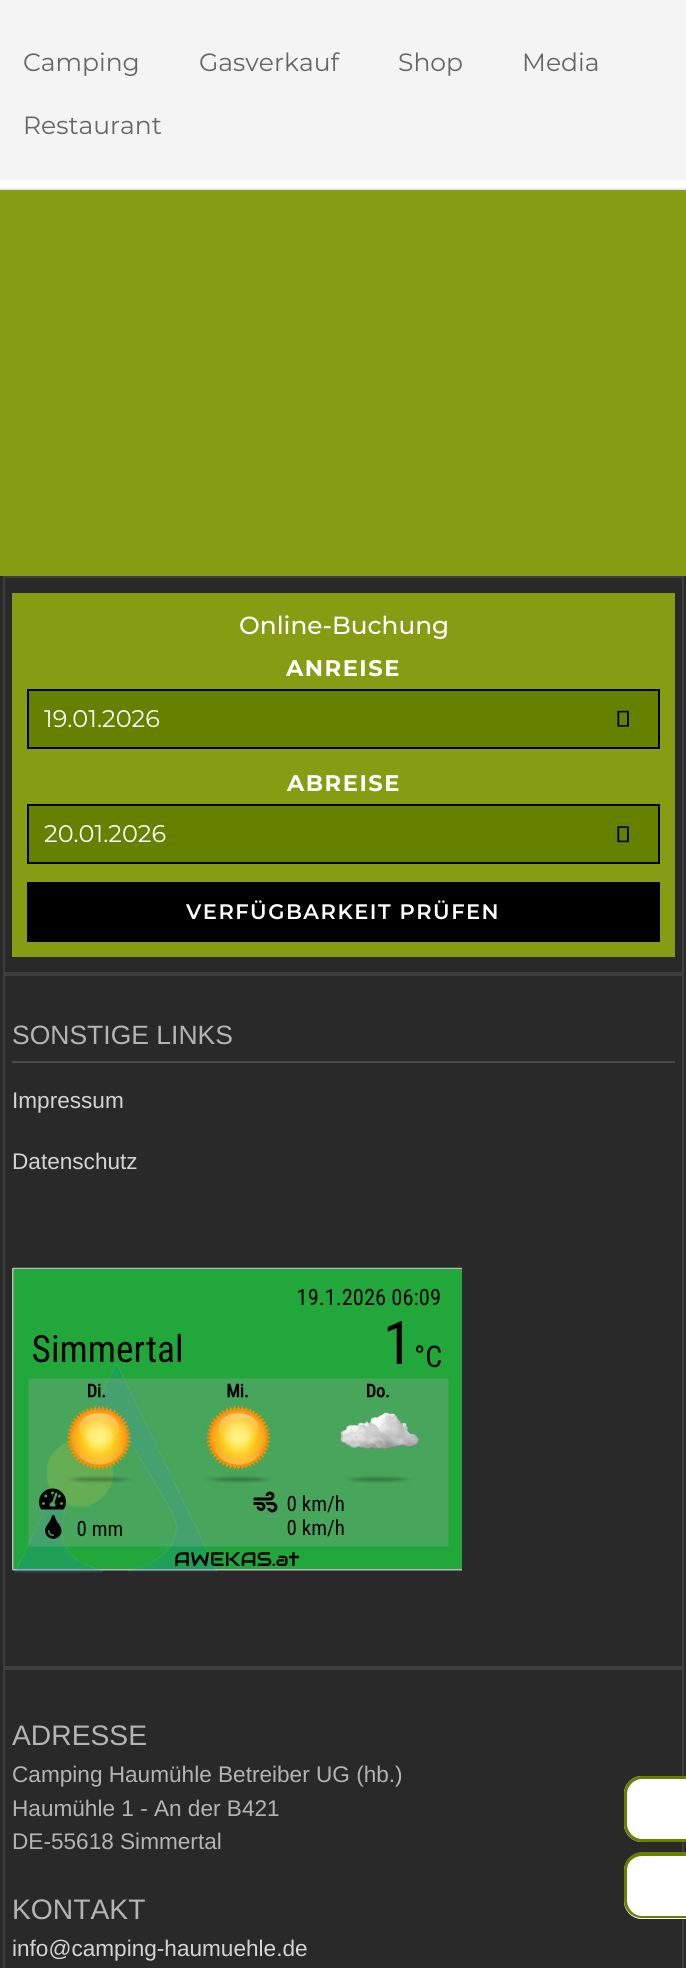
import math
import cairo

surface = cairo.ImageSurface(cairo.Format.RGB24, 686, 1968)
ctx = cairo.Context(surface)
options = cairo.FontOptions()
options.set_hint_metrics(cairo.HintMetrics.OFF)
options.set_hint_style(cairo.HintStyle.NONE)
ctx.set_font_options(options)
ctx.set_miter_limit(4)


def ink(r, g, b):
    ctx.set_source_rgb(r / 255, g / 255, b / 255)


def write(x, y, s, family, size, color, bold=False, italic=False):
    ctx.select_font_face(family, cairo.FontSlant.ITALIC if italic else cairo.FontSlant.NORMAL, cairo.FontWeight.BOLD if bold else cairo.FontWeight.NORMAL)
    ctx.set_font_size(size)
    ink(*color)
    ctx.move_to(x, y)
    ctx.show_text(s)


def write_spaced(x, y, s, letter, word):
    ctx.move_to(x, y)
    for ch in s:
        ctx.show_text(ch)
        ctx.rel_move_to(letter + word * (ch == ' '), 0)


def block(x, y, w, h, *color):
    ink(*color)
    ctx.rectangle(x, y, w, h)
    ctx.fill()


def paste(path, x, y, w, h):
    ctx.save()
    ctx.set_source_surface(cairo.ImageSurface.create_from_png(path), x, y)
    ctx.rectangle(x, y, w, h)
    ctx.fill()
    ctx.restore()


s1 = dict(family="Montserrat", size=25, color=(102, 102, 102))
s2 = dict(family="Montserrat Medium", size=24.75, color=(255, 255, 255))
s3 = dict(family="Montserrat", size=24, color=(255, 255, 255))
s4 = dict(family="Liberation Sans", size=26.5, color=(180, 180, 180))
s5 = dict(family="Liberation Sans", size=22.6, color=(212, 212, 212))
s6 = dict(family="Liberation Sans", size=28.25, color=(180, 180, 180))
s7 = dict(family="Liberation Sans", size=22.6, color=(180, 180, 180))

ink(134, 156, 19)
ctx.paint()
block(0, 180, 686, 8, 255, 255, 255)
block(0, 0, 686, 180, 244, 244, 244)
write(23, 71, "Camping", **s1)
write(199, 71, "Gasverkauf", **s1)
write(398, 71, "Shop", **s1)
write(522, 71, "Media", **s1)
write(23, 134, "Restaurant", **s1)
block(0, 576, 686, 1392, 41, 41, 41)
ctx.rectangle(4, 1669, 679, 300)
ink(62, 62, 62)
ctx.stroke()
ink(255, 255, 255)
ctx.new_path()
ctx.move_to(642, 1776)
ctx.line_to(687, 1776)
ctx.line_to(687, 1842)
ctx.line_to(642, 1842)
ctx.curve_to(632, 1842, 624, 1834, 624, 1824)
ctx.line_to(624, 1794)
ctx.curve_to(624, 1784, 632, 1776, 642, 1776)
ctx.close_path()
ctx.fill()
ink(102, 128, 0)
ctx.set_fill_rule(cairo.FillRule.EVEN_ODD)
ctx.new_path()
ctx.move_to(642, 1776)
ctx.line_to(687, 1776)
ctx.line_to(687, 1842)
ctx.line_to(642, 1842)
ctx.curve_to(632, 1842, 624, 1834, 624, 1824)
ctx.line_to(624, 1794)
ctx.curve_to(624, 1784, 632, 1776, 642, 1776)
ctx.close_path()
ctx.move_to(642, 1779)
ctx.line_to(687, 1779)
ctx.line_to(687, 1839)
ctx.line_to(642, 1839)
ctx.curve_to(634, 1839, 627, 1832, 627, 1824)
ctx.line_to(627, 1794)
ctx.curve_to(627, 1786, 634, 1779, 642, 1779)
ctx.close_path()
ctx.fill()
ink(255, 255, 255)
ctx.new_path()
ctx.move_to(642, 1853)
ctx.line_to(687, 1853)
ctx.line_to(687, 1919)
ctx.line_to(642, 1919)
ctx.curve_to(632, 1919, 624, 1911, 624, 1901)
ctx.line_to(624, 1871)
ctx.curve_to(624, 1861, 632, 1853, 642, 1853)
ctx.close_path()
ctx.fill()
ink(102, 128, 0)
ctx.new_path()
ctx.move_to(642, 1852)
ctx.line_to(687, 1852)
ctx.line_to(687, 1918)
ctx.line_to(642, 1918)
ctx.curve_to(632, 1918, 624, 1910, 624, 1900)
ctx.line_to(624, 1870)
ctx.curve_to(624, 1861, 632, 1852, 642, 1852)
ctx.close_path()
ctx.move_to(642, 1856)
ctx.line_to(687, 1856)
ctx.line_to(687, 1916)
ctx.line_to(642, 1916)
ctx.curve_to(634, 1916, 627, 1909, 627, 1900)
ctx.line_to(627, 1870)
ctx.curve_to(627, 1862, 634, 1856, 642, 1856)
ctx.close_path()
ctx.fill()
block(0, 188, 686, 2, 231, 231, 231)
ctx.rectangle(4, 577, 679, 396)
ink(62, 62, 62)
ctx.stroke()
block(12, 593, 663, 364, 134, 156, 19)
write(239, 634, "Online-Buchung", **s2)
ctx.select_font_face("Montserrat", cairo.FontSlant.NORMAL, cairo.FontWeight.BOLD)
ctx.set_font_size(22.6)
write_spaced(286, 676, "ANREISE", 1.5, 0)
ink(102, 128, 0)
ctx.rectangle(28, 690, 631, 58)
ctx.fill_preserve()
ink(0, 0, 0)
ctx.stroke()
write(44, 727, "19.01.2026", **s3)
paste("pic1.png", 617, 710, 12, 17)
ctx.select_font_face("Montserrat", cairo.FontSlant.NORMAL, cairo.FontWeight.BOLD)
ctx.set_font_size(22.6)
write_spaced(287, 791, "ABREISE", 1.5, 0)
ink(102, 128, 0)
ctx.rectangle(28, 805, 631, 58)
ctx.fill_preserve()
ink(0, 0, 0)
ctx.stroke()
write(44, 842, "20.01.2026", **s3)
paste("pic2.png", 617, 826, 12, 17)
block(27, 882, 633, 60, 0, 0, 0)
ctx.select_font_face("Montserrat SemiBold")
ctx.set_font_size(21)
ink(255, 255, 255)
write_spaced(186, 919, "VERFÜGBARKEIT PRÜFEN", 1.5, 0)
ctx.rectangle(4, 975, 679, 692)
ink(62, 62, 62)
ctx.stroke()
block(12, 1061, 663, 2, 73, 73, 73)
write(12, 1044, "SONSTIGE LINKS", **s4)
write(12, 1108, "Impressum", **s5)
write(12, 1169, "Datenschutz", **s5)
paste("pic3.png", 12, 1267, 450, 306)
write(12, 1745, "ADRESSE", **s6)
write(12, 1782, "Camping Haumühle Betreiber UG (hb.)", **s7)
write(12, 1816, "Haumühle 1 - An der B421", **s7)
write(12, 1849, "DE-55618 Simmertal", **s7)
write(12, 1919, "KONTAKT", **s6)
write(12, 1956, "info@camping-haumuehle.de", **s5)
surface.write_to_png("screenshot.png")
